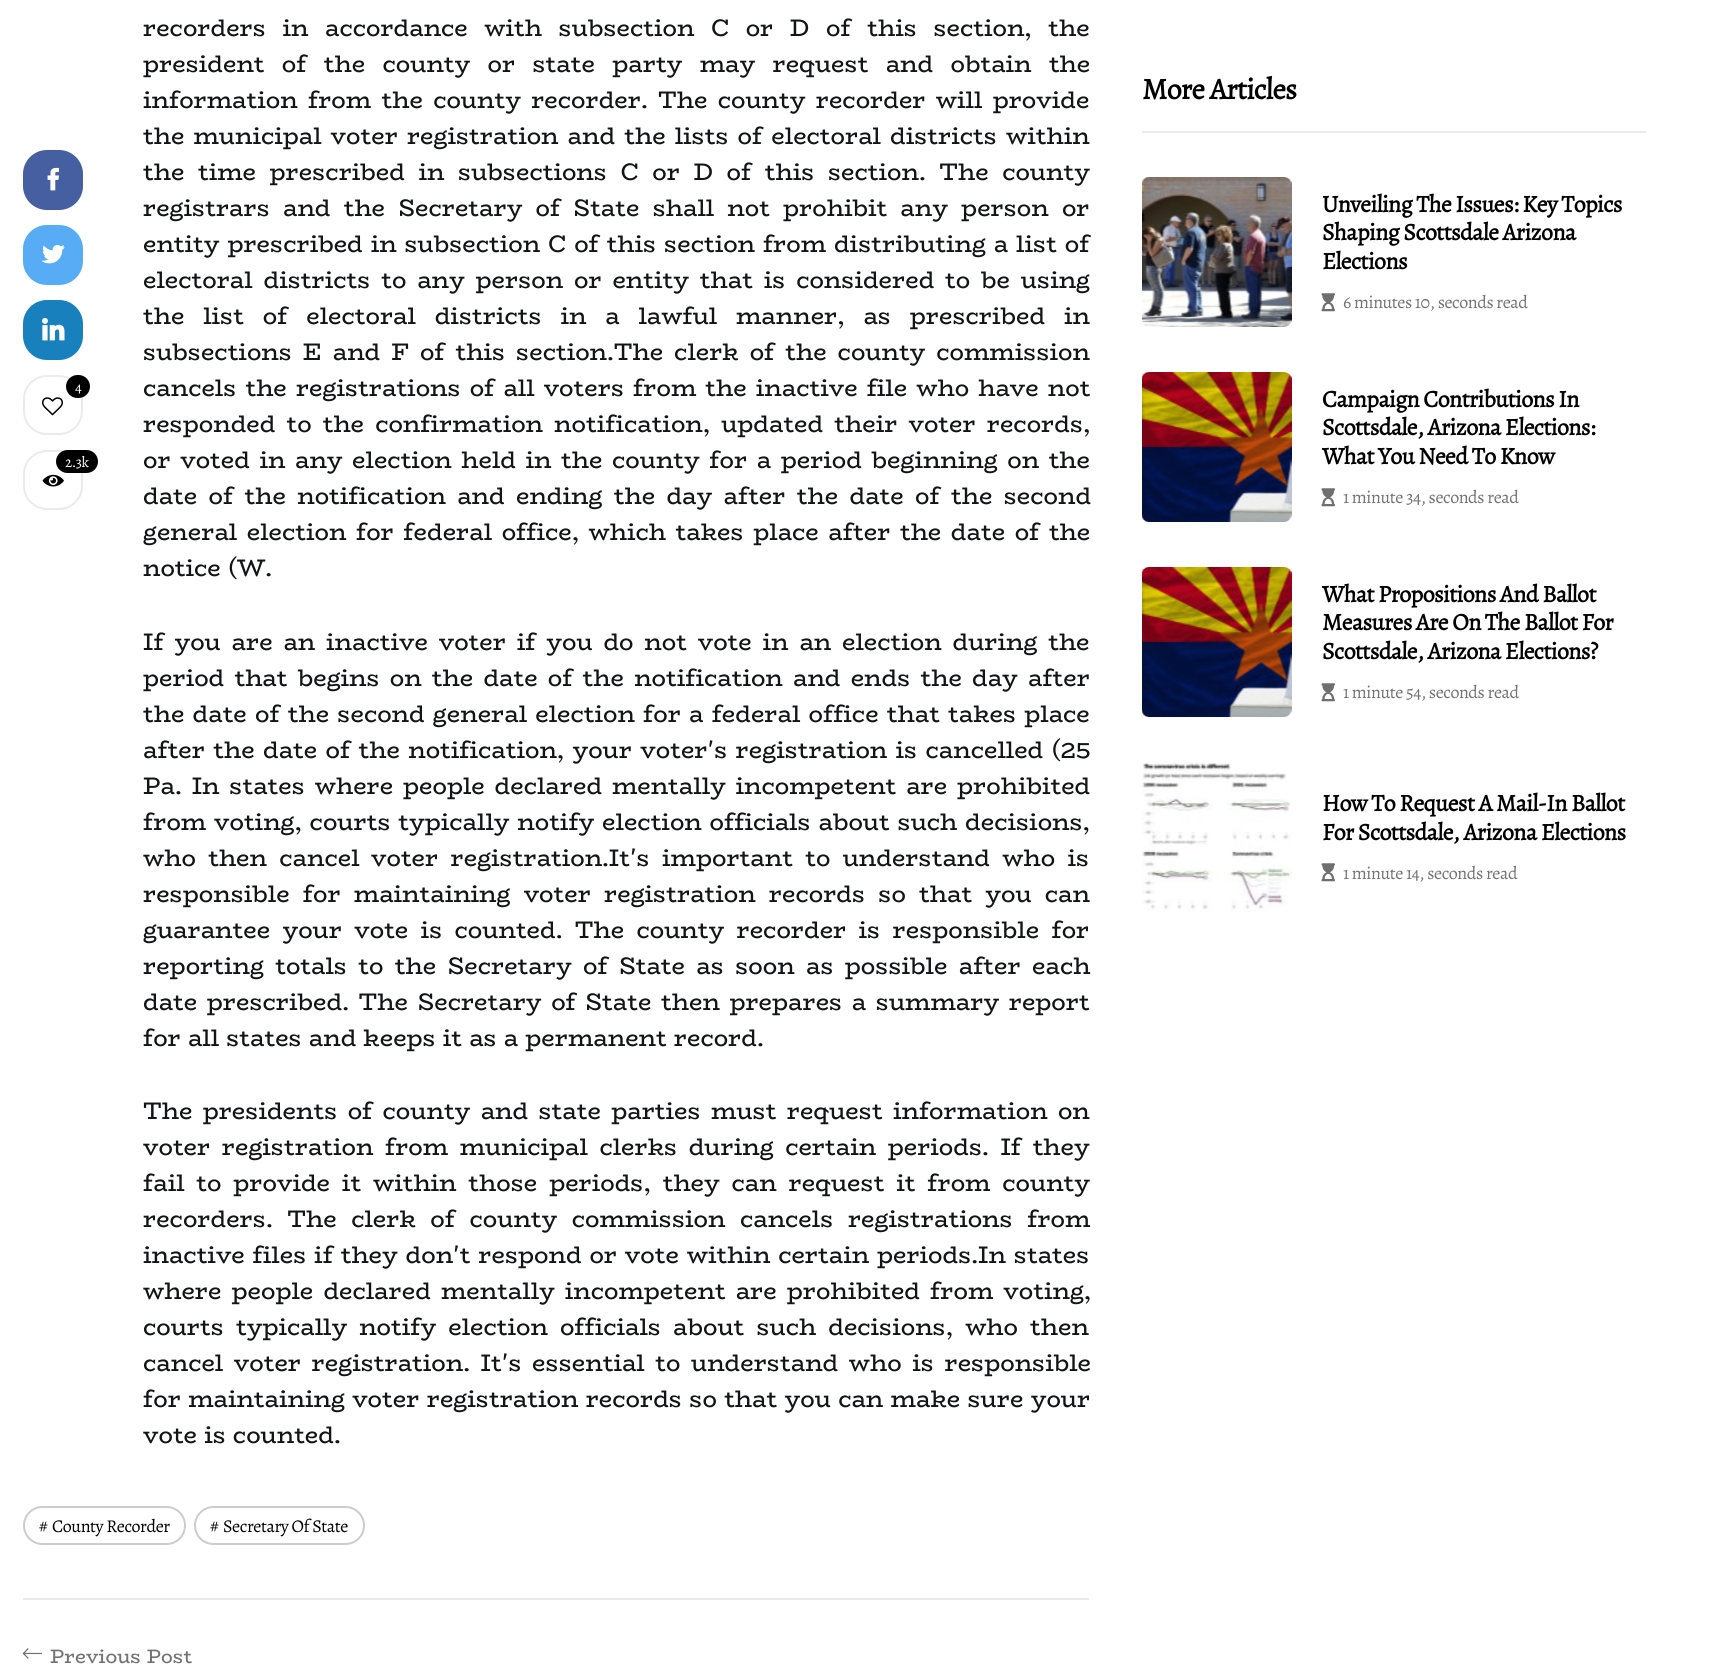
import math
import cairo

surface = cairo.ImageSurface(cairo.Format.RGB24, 1712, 1672)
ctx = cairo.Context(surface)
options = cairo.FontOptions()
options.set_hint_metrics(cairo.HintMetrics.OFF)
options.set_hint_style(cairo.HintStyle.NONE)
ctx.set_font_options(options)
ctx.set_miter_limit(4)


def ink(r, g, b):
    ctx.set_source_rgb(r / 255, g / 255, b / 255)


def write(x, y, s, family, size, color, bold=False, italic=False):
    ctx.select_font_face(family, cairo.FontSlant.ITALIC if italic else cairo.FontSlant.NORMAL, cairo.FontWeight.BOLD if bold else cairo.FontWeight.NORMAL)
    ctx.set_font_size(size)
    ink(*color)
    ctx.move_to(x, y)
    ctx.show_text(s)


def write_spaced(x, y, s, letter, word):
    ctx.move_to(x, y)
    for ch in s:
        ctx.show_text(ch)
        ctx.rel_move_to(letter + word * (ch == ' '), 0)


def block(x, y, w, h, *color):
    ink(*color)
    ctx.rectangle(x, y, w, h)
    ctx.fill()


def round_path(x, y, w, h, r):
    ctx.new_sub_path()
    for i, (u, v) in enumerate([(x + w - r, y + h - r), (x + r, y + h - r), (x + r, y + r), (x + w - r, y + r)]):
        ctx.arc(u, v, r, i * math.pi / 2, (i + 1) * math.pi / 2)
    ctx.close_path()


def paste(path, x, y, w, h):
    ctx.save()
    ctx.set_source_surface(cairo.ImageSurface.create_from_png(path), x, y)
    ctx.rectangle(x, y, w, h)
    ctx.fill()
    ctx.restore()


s1 = dict(family="BioRhyme ExtraBold", size=24, color=(18, 20, 22))
s2 = dict(family="BioRhyme ExtraBold", size=19.5, color=(115, 115, 115))

ink(255, 255, 255)
ctx.paint()
ink(69, 95, 161)
round_path(23, 150, 60, 60, 24)
ctx.fill()
paste("pic1.png", 47, 167, 12, 24)
ink(88, 171, 245)
round_path(23, 225, 60, 60, 24)
ctx.fill()
paste("pic2.png", 42, 245, 23, 19)
ink(25, 128, 190)
round_path(23, 300, 60, 60, 24)
ctx.fill()
paste("pic3.png", 42, 318, 23, 23)
round_path(24, 376, 58, 58, 23)
ink(235, 235, 235)
ctx.stroke()
paste("pic4.png", 42, 397, 21, 19)
ink(0, 0, 0)
round_path(66, 375, 24, 23, 11.5)
ctx.fill()
ctx.select_font_face("Alegreya")
ctx.set_font_size(15)
ink(255, 255, 255)
write_spaced(75, 392, "4", -0.5, 0)
round_path(24, 451, 58, 58, 23)
ink(235, 235, 235)
ctx.stroke()
paste("pic5.png", 42, 474, 22, 13)
ink(0, 0, 0)
round_path(56, 450, 42, 23, 11.5)
ctx.fill()
ink(255, 255, 255)
write_spaced(65, 467, "2.3k", -0.5, 0)
ctx.select_font_face("BioRhyme ExtraBold")
ctx.set_font_size(24)
ink(18, 20, 22)
write_spaced(143, 36, "recorders in accordance with subsection C or D of this section, the", 0, 9.5)
write_spaced(143, 72, "president of the county or state party may request and obtain the", 0, 10.25)
write_spaced(143, 108, "information from the county recorder. The county recorder will provide", 0, 3.25)
write_spaced(143, 144, "the municipal voter registration and the lists of electoral districts within", 0, 2)
write_spaced(143, 180, "the time prescribed in subsections C or D of this section. The county", 0, 6.5)
write_spaced(143, 216, "registrars and the Secretary of State shall not prohibit any person or", 0, 6.1)
write_spaced(143, 252, "entity prescribed in subsection C of this section from distributing a list of", 0, 0.8)
write_spaced(143, 288, "electoral districts to any person or entity that is considered to be using", 0, 3.75)
write_spaced(143, 324, "the list of electoral districts in a lawful manner, as prescribed in", 0, 11.75)
write_spaced(143, 360, "subsections E and F of this section.The clerk of the county commission", 0, 3.9)
write_spaced(143, 396, "cancels the registrations of all voters from the inactive file who have not", 0, 2)
write_spaced(143, 432, "responded to the confirmation notification, updated their voter records,", 0, 4)
write_spaced(143, 468, "or voted in any election held in the county for a period beginning on the", 0, 2.5)
write_spaced(143, 504, "date of the notification and ending the day after the date of the second", 0, 4.25)
write_spaced(143, 540, "general election for federal office, which takes place after the date of the", 0, 2.5)
write(143, 576, "notice (W.", **s1)
write_spaced(143, 650, "If you are an inactive voter if you do not vote in an election during the", 0, 3.75)
write_spaced(143, 686, "period that begins on the date of the notification and ends the day after", 0, 3.1)
write_spaced(143, 722, "the date of the second general election for a federal office that takes place", 0, 1.1)
write_spaced(143, 758, "after the date of the notification, your voter's registration is cancelled (25", 0, 1.25)
write_spaced(143, 794, "Pa. In states where people declared mentally incompetent are prohibited", 0, 2.75)
write_spaced(143, 830, "from voting, courts typically notify election officials about such decisions,", 0, 0.75)
write_spaced(143, 866, "who then cancel", 0, 5.25)
write_spaced(371, 866, "voter registration", 0, 5.25)
write_spaced(602, 866, ".It's important to understand who is", 0, 5.25)
write_spaced(143, 902, "responsible for maintaining voter registration records so that you can", 0, 6.1)
write_spaced(143, 938, "guarantee your vote is counted. The county recorder is responsible for", 0, 5.25)
write_spaced(143, 974, "reporting totals to the Secretary of State as soon as possible after each", 0, 4.25)
write_spaced(143, 1010, "date prescribed. The Secretary of State then prepares a summary report", 0, 2.5)
write(143, 1046, "for all states and keeps it as a permanent record.", **s1)
write_spaced(143, 1119, "The presidents of county and state parties must request information on", 0, 3.25)
write_spaced(143, 1155, "voter registration from municipal clerks during certain periods. If they", 0, 4.5)
write_spaced(143, 1191, "fail to provide it within those periods, they can request it from county", 0, 4.75)
write_spaced(143, 1227, "recorders. The clerk of county commission cancels registrations from", 0, 7.5)
write_spaced(143, 1263, "inactive files if they don't respond or vote within certain periods.In states", 0, 0.75)
write_spaced(143, 1299, "where people declared mentally incompetent are prohibited from voting,", 0, 3)
write_spaced(143, 1335, "courts typically notify election officials about such decisions, who then", 0, 5)
write_spaced(143, 1371, "cancel voter registration. It's essential to understand who is responsible", 0, 3.5)
write_spaced(143, 1407, "for maintaining voter registration records so that you can make sure your", 0, 0.25)
write(143, 1443, "vote is counted.", **s1)
round_path(24, 1507, 161, 37, 18.5)
ink(204, 204, 204)
ctx.stroke()
ctx.select_font_face("Alegreya")
ctx.set_font_size(18)
ink(0, 0, 0)
write_spaced(39, 1532, "#", -0.45, 0)
write_spaced(52, 1532, "County Recorder", -0.45, 0)
round_path(195, 1507, 169, 37, 18.5)
ink(204, 204, 204)
ctx.stroke()
ink(0, 0, 0)
write_spaced(210, 1532, "#", -0.45, 0)
write_spaced(223, 1532, "Secretary Of State", -0.45, 0)
block(23, 1598, 1066, 2, 235, 235, 235)
paste("pic6.png", 22, 1648, 20, 11)
write(50, 1663, "Previous Post", **s2)
block(1142, 131, 504, 2, 235, 235, 235)
ctx.select_font_face("Alegreya", cairo.FontSlant.NORMAL, cairo.FontWeight.BOLD)
ctx.set_font_size(30)
ink(0, 0, 0)
write_spaced(1142, 99, "More Articles", -0.75, 0)
paste("pic7.png", 1142, 177, 150, 150)
ctx.set_font_size(24)
write_spaced(1322, 212, "Unveiling The Issues: Key Topics", -0.6, 0)
write_spaced(1322, 240, "Shaping Scottsdale Arizona", -0.6, 0)
write_spaced(1322, 269, "Elections", -0.6, 0)
paste("pic8.png", 1321, 293, 14, 19)
ctx.select_font_face("Alegreya")
ctx.set_font_size(18)
ink(115, 115, 115)
write_spaced(1343, 308, "6 minutes 10, seconds read", -0.45, 0)
paste("pic9.png", 1142, 372, 150, 150)
ctx.select_font_face("Alegreya", cairo.FontSlant.NORMAL, cairo.FontWeight.BOLD)
ctx.set_font_size(24)
ink(0, 0, 0)
write_spaced(1322, 407, "Campaign Contributions In", -0.6, 0)
write_spaced(1322, 435, "Scottsdale, Arizona Elections:", -0.6, 0)
write_spaced(1322, 464, "What You Need To Know", -0.6, 0)
paste("pic8.png", 1321, 488, 14, 19)
ctx.select_font_face("Alegreya")
ctx.set_font_size(18)
ink(115, 115, 115)
write_spaced(1343, 503, "1 minute 34, seconds read", -0.45, 0)
paste("pic9.png", 1142, 567, 150, 150)
ctx.select_font_face("Alegreya", cairo.FontSlant.NORMAL, cairo.FontWeight.BOLD)
ctx.set_font_size(24)
ink(0, 0, 0)
write_spaced(1322, 602, "What Propositions And Ballot", -0.6, 0)
write_spaced(1322, 630, "Measures Are On The Ballot For", -0.6, 0)
write_spaced(1322, 659, "Scottsdale, Arizona Elections?", -0.6, 0)
paste("pic8.png", 1321, 683, 14, 19)
ctx.select_font_face("Alegreya")
ctx.set_font_size(18)
ink(115, 115, 115)
write_spaced(1343, 698, "1 minute 54, seconds read", -0.45, 0)
paste("pic10.png", 1142, 762, 150, 150)
ctx.select_font_face("Alegreya", cairo.FontSlant.NORMAL, cairo.FontWeight.BOLD)
ctx.set_font_size(24)
ink(0, 0, 0)
write_spaced(1322, 811, "How To Request A Mail-In Ballot", -0.6, 0)
write_spaced(1322, 840, "For Scottsdale, Arizona Elections", -0.6, 0)
paste("pic8.png", 1321, 863, 14, 19)
ctx.select_font_face("Alegreya")
ctx.set_font_size(18)
ink(115, 115, 115)
write_spaced(1343, 879, "1 minute 14, seconds read", -0.45, 0)
surface.write_to_png("screenshot.png")
